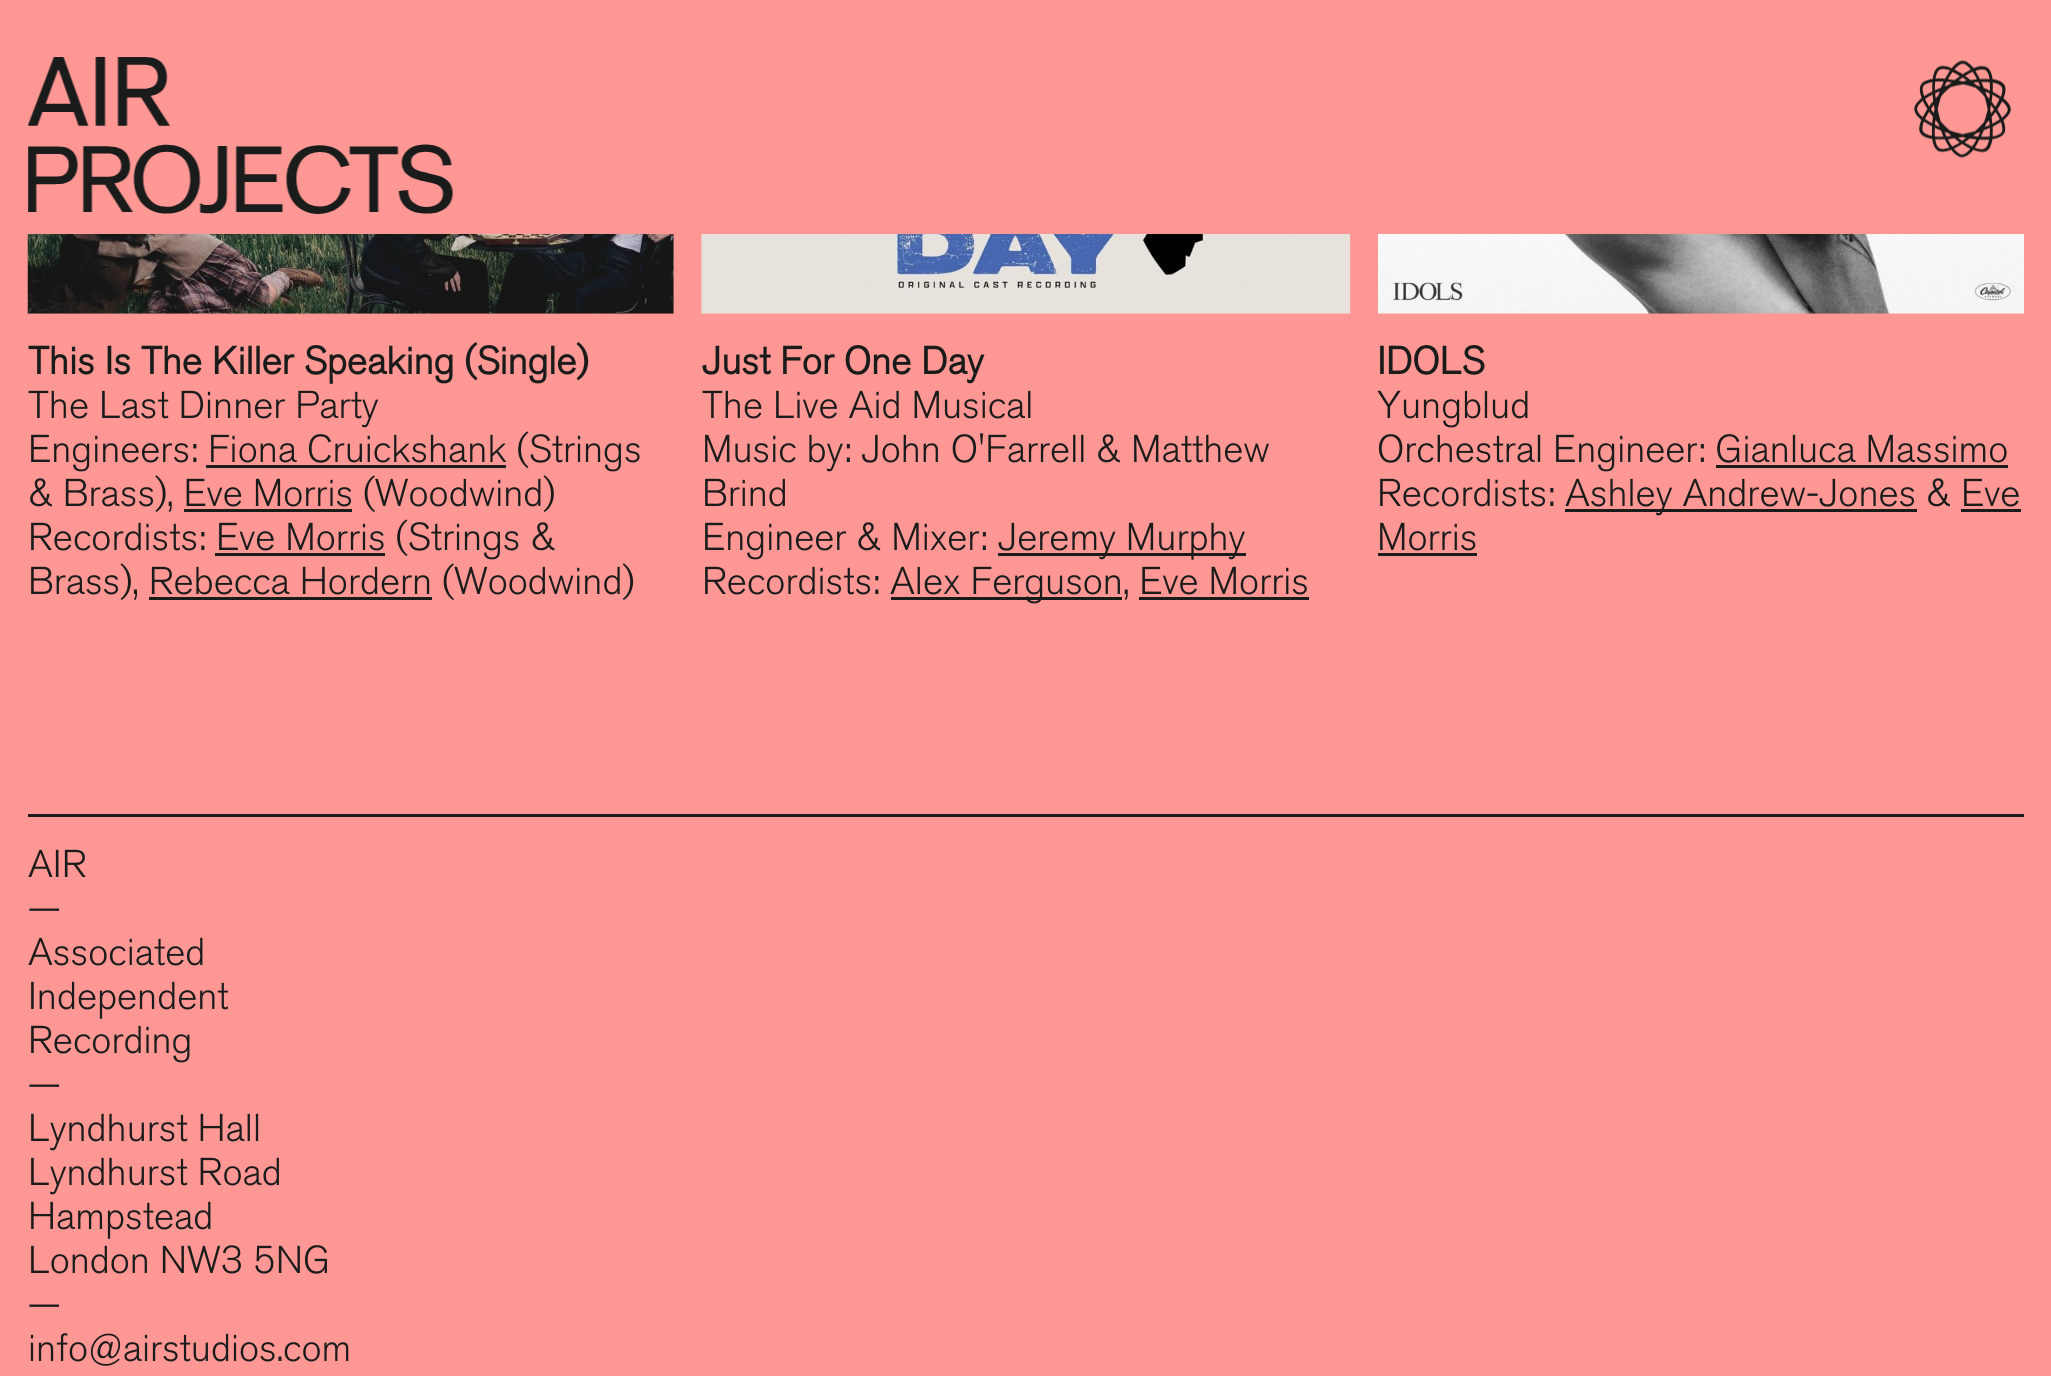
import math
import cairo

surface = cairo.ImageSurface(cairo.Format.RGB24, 2051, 1376)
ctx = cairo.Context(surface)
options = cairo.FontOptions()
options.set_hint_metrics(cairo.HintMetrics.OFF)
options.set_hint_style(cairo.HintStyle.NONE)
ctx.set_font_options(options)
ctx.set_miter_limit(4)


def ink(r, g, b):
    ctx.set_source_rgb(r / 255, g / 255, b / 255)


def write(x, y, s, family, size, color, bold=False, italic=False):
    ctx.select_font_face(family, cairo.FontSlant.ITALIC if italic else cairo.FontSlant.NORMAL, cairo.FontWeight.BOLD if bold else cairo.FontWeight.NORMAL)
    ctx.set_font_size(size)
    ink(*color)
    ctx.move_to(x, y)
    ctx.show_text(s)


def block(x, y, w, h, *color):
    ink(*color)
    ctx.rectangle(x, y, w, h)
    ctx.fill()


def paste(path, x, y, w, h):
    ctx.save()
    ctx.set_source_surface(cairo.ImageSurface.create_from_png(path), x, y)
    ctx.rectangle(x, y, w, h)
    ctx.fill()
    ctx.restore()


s1 = dict(family="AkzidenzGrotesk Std", size=38.5, color=(26, 27, 27), bold=True)
s2 = dict(family="AkzidenzGrotesk Std Light", size=38.5, color=(26, 27, 27))

ink(255, 151, 148)
ctx.paint()
paste("pic1.png", 28, 56, 143, 70)
paste("pic2.png", 1914, 60, 97, 98)
paste("pic3.png", 28, 144, 426, 70)
paste("pic4.png", 27, 234, 647, 80)
write(28, 374, "This Is The Killer Speaking (Single)", **s1)
write(28, 418, "The Last Dinner Party", **s2)
write(28, 462, "Engineers: Fiona Cruickshank (Strings", **s2)
block(206, 465, 300, 3, 26, 27, 27)
write(28, 506, "& Brass), Eve Morris (Woodwind)", **s2)
block(184, 509, 168, 3, 26, 27, 27)
write(28, 550, "Recordists: Eve Morris (Strings &", **s2)
block(215, 553, 170, 3, 26, 27, 27)
write(28, 594, "Brass), Rebecca Hordern (Woodwind)", **s2)
block(149, 597, 283, 3, 26, 27, 27)
paste("pic5.png", 701, 234, 650, 80)
write(702, 374, "Just For One Day", **s1)
write(702, 418, "The Live Aid Musical", **s2)
write(702, 462, "Music by: John O'Farrell & Matthew", **s2)
write(702, 506, "Brind", **s2)
write(702, 550, "Engineer & Mixer:", **s2)
block(998, 553, 248, 3, 26, 27, 27)
write(998, 550, "Jeremy Murphy", **s2)
write(702, 594, "Recordists:", **s2)
block(891, 597, 231, 3, 26, 27, 27)
write(890, 594, "Alex Ferguson, Eve Morris", **s2)
block(1139, 597, 170, 3, 26, 27, 27)
paste("pic6.png", 1377, 234, 647, 80)
write(1377, 374, "IDOLS", **s1)
write(1377, 418, "Yungblud", **s2)
write(1377, 462, "Orchestral Engineer: Gianluca Massimo", **s2)
block(1716, 465, 292, 3, 26, 27, 27)
write(1377, 506, "Recordists:", **s2)
block(1565, 509, 352, 3, 26, 27, 27)
write(1565, 506, "Ashley Andrew-Jones & Eve", **s2)
write(1377, 550, "Morris", **s2)
block(1961, 509, 60, 3, 26, 27, 27)
block(1378, 553, 99, 3, 26, 27, 27)
block(28, 814, 1996, 3, 26, 27, 27)
write(28, 877, "AIR", **s2)
write(28, 921, "—", **s2)
write(28, 965, "Associated", **s2)
write(28, 1009, "Independent", **s2)
write(28, 1053, "Recording", **s2)
write(28, 1097, "—", **s2)
write(28, 1141, "Lyndhurst Hall", **s2)
write(28, 1185, "Lyndhurst Road", **s2)
write(28, 1229, "Hampstead", **s2)
write(28, 1273, "London NW3 5NG", **s2)
write(28, 1317, "—", **s2)
write(28, 1361, "info@airstudios.com", **s2)
surface.write_to_png("screenshot.png")
